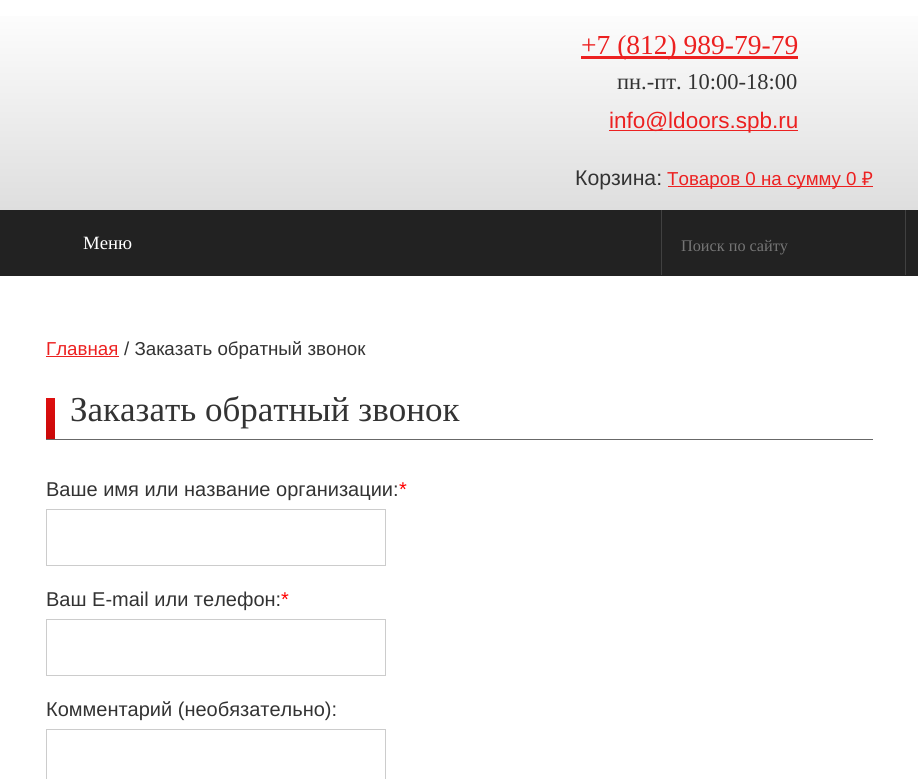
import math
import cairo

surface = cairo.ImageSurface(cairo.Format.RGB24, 918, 779)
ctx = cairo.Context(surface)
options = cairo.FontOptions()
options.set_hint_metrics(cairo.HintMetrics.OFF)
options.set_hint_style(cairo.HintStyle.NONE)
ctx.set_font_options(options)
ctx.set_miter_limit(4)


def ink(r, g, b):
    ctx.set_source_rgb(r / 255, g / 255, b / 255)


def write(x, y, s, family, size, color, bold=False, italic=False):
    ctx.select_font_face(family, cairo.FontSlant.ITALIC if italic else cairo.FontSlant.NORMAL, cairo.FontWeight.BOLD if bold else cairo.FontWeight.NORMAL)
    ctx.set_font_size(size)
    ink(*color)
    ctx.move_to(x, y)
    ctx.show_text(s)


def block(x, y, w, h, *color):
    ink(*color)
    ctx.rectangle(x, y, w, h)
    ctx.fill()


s1 = dict(family="Liberation Serif", size=27.5, color=(236, 33, 33))
s2 = dict(family="Liberation Serif", size=22.5, color=(51, 51, 51))
s3 = dict(family="Liberation Sans", size=22.5, color=(236, 33, 33))
s4 = dict(family="Liberation Sans", size=21.25, color=(51, 51, 51))
s5 = dict(family="Liberation Sans", size=18.75, color=(236, 33, 33))
s6 = dict(family="Noto Sans", size=18.75, color=(236, 33, 33))
s7 = dict(family="Liberation Serif", size=18.75, color=(255, 255, 255))
s8 = dict(family="Liberation Serif", size=16.25, color=(117, 117, 117))
s9 = dict(family="Liberation Sans", size=18.75, color=(51, 51, 51))
s10 = dict(family="Liberation Serif", size=35, color=(51, 51, 51))
s11 = dict(family="Liberation Sans", size=20, color=(51, 51, 51))
s12 = dict(family="Liberation Sans", size=20, color=(255, 0, 0))

ink(255, 255, 255)
ctx.paint()
gradient = cairo.LinearGradient(459, 0, 459, 210)
gradient.add_color_stop_rgba(0, 1, 1, 1, 1)
gradient.add_color_stop_rgba(1, 0.871, 0.871, 0.871, 1)
ctx.set_source(gradient)
ctx.rectangle(0, 16, 918, 194)
ctx.fill()
block(581, 56, 217, 3, 236, 33, 33)
write(581, 54, "+7 (812) 989-79-79", **s1)
write(617, 89, "пн.-пт. 10:00-18:00", **s2)
block(609, 130, 189, 1, 236, 33, 33)
write(609, 128, "info@ldoors.spb.ru", **s3)
write(575, 185, "Корзина:", **s4)
block(668, 186, 205, 1, 236, 33, 33)
write(667, 185, "Товаров 0 на сумму 0", **s5)
write(862, 185, "₽", **s6)
block(0, 210, 918, 66, 34, 34, 34)
write(83, 249, "Меню", **s7)
block(905, 210, 1, 65, 65, 65, 65)
block(661, 210, 1, 65, 65, 65, 65)
write(681, 251, "Поиск по сайту", **s8)
write(46, 355, "Главная", **s5)
block(46, 356, 73, 1, 236, 33, 33)
write(124, 355, "/ Заказать обратный звонок", **s9)
block(46, 439, 827, 1, 104, 104, 104)
gradient = cairo.LinearGradient(51, 398, 51, 439)
gradient.add_color_stop_rgba(0, 0.871, 0.059, 0.059, 1)
gradient.add_color_stop_rgba(1, 0.788, 0.035, 0.035, 1)
ctx.set_source(gradient)
ctx.rectangle(46, 398, 9, 41)
ctx.fill()
write(70, 421, "Заказать обратный звонок", **s10)
write(46, 496, "Ваше имя или название организации:", **s11)
write(399, 496, "*", **s12)
ctx.rectangle(46.5, 509.5, 339, 56)
ink(204, 204, 204)
ctx.set_line_width(1)
ctx.stroke()
write(46, 606, "Ваш E-mail или телефон:", **s11)
write(281, 606, "*", **s12)
ctx.rectangle(46.5, 619.5, 339, 56)
ink(204, 204, 204)
ctx.stroke()
write(46, 716, "Комментарий (необязательно):", **s11)
ctx.rectangle(46.5, 729.5, 339, 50)
ink(204, 204, 204)
ctx.stroke()
surface.write_to_png("screenshot.png")
